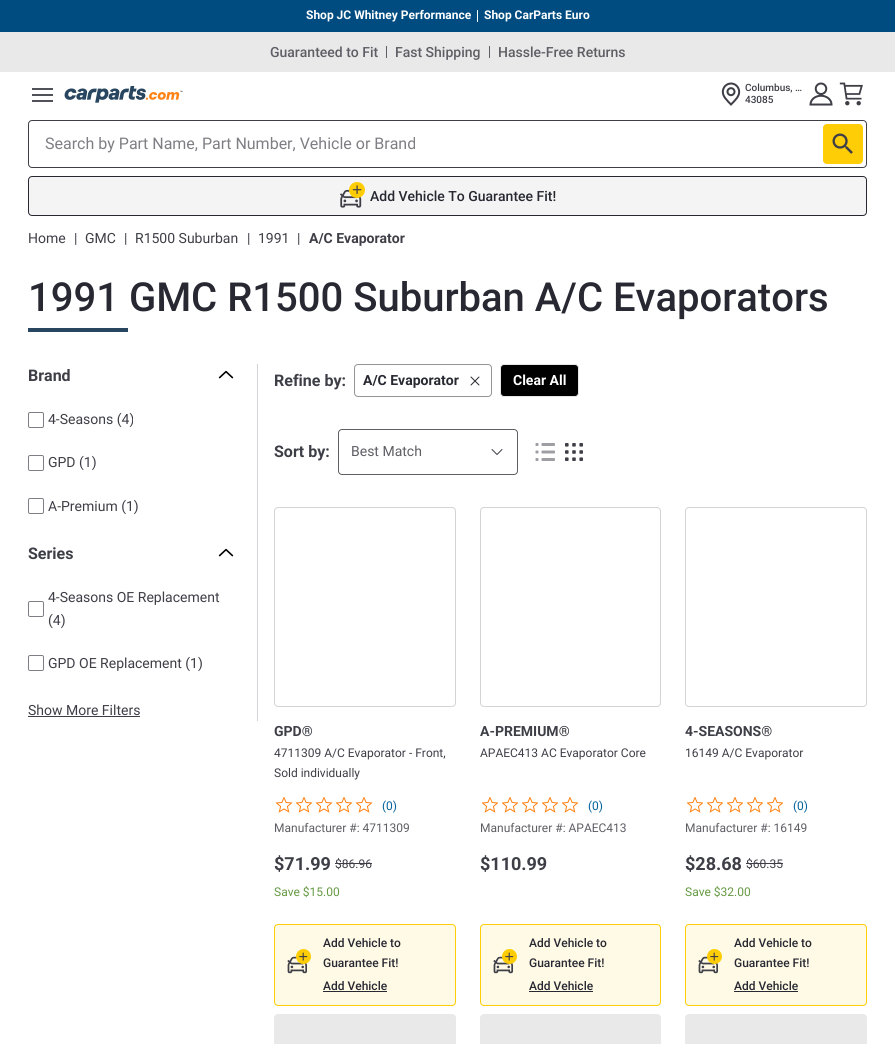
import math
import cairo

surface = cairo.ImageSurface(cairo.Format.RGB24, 895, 1044)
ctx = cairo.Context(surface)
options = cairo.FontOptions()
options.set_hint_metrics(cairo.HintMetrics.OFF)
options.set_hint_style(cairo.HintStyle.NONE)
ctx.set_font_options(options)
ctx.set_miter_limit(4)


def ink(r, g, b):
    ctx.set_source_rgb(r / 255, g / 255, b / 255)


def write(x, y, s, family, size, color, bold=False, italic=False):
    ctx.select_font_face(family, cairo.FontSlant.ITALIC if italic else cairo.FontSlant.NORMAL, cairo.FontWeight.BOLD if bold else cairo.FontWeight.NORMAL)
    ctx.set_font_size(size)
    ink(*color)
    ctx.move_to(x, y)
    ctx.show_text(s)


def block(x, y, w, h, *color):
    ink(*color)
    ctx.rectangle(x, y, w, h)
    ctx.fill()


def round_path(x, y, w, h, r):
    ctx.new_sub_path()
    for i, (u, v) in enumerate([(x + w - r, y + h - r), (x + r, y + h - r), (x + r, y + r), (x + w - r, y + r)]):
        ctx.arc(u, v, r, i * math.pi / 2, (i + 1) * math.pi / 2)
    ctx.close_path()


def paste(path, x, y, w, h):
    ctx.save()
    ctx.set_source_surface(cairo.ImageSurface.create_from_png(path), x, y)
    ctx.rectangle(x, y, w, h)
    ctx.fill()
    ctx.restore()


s1 = dict(family="Roboto", size=12, color=(255, 255, 255), bold=True)
s2 = dict(family="Roboto Medium", size=14, color=(94, 94, 101))
s3 = dict(family="Roboto Medium", size=10, color=(62, 62, 71))
s4 = dict(family="Roboto", size=16, color=(126, 126, 132))
s5 = dict(family="Roboto Medium", size=14, color=(40, 40, 50))
s6 = dict(family="Roboto", size=14, color=(62, 62, 71))
s7 = dict(family="Roboto", size=14, color=(62, 62, 71), bold=True)
s8 = dict(family="Roboto Medium", size=40, color=(40, 40, 50))
s9 = dict(family="Roboto", size=16, color=(62, 62, 71), bold=True)
s10 = dict(family="Roboto", size=14, color=(40, 40, 50), bold=True)
s11 = dict(family="Roboto", size=14, color=(255, 255, 255), bold=True)
s12 = dict(family="Roboto", size=14, color=(94, 94, 101))
s13 = dict(family="Roboto", size=12, color=(62, 62, 71))
s14 = dict(family="Roboto", size=12, color=(5, 98, 155))
s15 = dict(family="Roboto", size=12, color=(94, 94, 101))
s16 = dict(family="Roboto", size=18, color=(62, 62, 71), bold=True)
s17 = dict(family="Roboto", size=12, color=(102, 153, 68))
s18 = dict(family="Roboto Medium", size=12, color=(40, 40, 50))

ink(255, 255, 255)
ctx.paint()
block(0, 32, 895, 40, 233, 233, 234)
block(0, 0, 895, 32, 0, 76, 128)
write(306, 19, "Shop JC Whitney Performance", **s1)
block(477, 10, 1, 12, 255, 255, 255)
write(484, 19, "Shop CarParts Euro", **s1)
write(270, 57, "Guaranteed to Fit", **s2)
block(386, 46, 1, 12, 94, 94, 101)
write(395, 57, "Fast Shipping", **s2)
block(489, 46, 1, 12, 94, 94, 101)
write(498, 57, "Hassle-Free Returns", **s2)
block(32, 88, 21, 2, 81, 81, 89)
block(32, 94, 21, 2, 81, 81, 89)
block(32, 100, 21, 2, 81, 81, 89)
paste("pic1.png", 64, 86, 119, 17)
paste("pic2.png", 721, 82, 20, 24)
write(745, 91, "Columbus, …", **s3)
write(745, 103, "43085", **s3)
paste("pic3.png", 809, 82, 24, 24)
paste("pic4.png", 839, 82, 24, 24)
round_path(28.5, 120.5, 838, 47, 3.5)
ctx.set_line_width(1)
ctx.stroke()
write(45, 149, "Search by Part Name, Part Number, Vehicle or Brand", **s4)
ink(255, 205, 5)
round_path(823, 124, 40, 40, 4)
ctx.fill()
paste("pic5.png", 832, 133, 21, 21)
ink(244, 244, 244)
round_path(28.5, 176.5, 838, 39, 3.5)
ctx.fill_preserve()
ink(40, 40, 50)
ctx.stroke()
paste("pic6.png", 340, 182, 25, 26)
write(370, 201, "Add Vehicle To Guarantee Fit!", **s5)
write(28, 243, "Home", **s6)
write(74, 243, "|", **s6)
write(85, 243, "GMC", **s6)
write(124, 243, "|", **s6)
write(135, 243, "R1500 Suburban", **s6)
write(247, 243, "|", **s6)
write(258, 243, "1991", **s6)
write(297, 243, "|", **s6)
write(309, 243, "A/C Evaporator", **s7)
write(28, 311, "1991 GMC R1500 Suburban A/C Evaporators", **s8)
block(28, 328, 100, 4, 40, 70, 95)
block(257, 364, 1, 357, 209, 213, 219)
write(28, 381, "Brand", **s9)
paste("pic7.png", 218, 370, 16, 9)
round_path(28.5, 412.5, 15, 15, 1.5)
ink(126, 126, 132)
ctx.stroke()
write(48, 424, "4-Seasons (4)", **s6)
round_path(28.5, 455.5, 15, 15, 1.5)
ink(126, 126, 132)
ctx.stroke()
write(48, 467, "GPD (1)", **s6)
round_path(28.5, 498.5, 15, 15, 1.5)
ink(126, 126, 132)
ctx.stroke()
write(48, 511, "A-Premium (1)", **s6)
write(28, 559, "Series", **s9)
paste("pic7.png", 218, 548, 16, 9)
round_path(28.5, 601.5, 15, 15, 1.5)
ink(126, 126, 132)
ctx.stroke()
write(48, 602, "4-Seasons OE Replacement", **s6)
write(48, 625, "(4)", **s6)
round_path(28.5, 655.5, 15, 15, 1.5)
ink(126, 126, 132)
ctx.stroke()
write(48, 668, "GPD OE Replacement (1)", **s6)
write(28, 715, "Show More Filters", **s6)
block(28, 716, 112, 1, 62, 62, 71)
write(274, 386, "Refine by:", **s9)
round_path(354.5, 364.5, 137, 32, 3.5)
ink(147, 147, 152)
ctx.stroke()
write(363, 385, "A/C Evaporator", **s10)
paste("pic8.png", 470, 376, 10, 10)
ink(0, 0, 0)
round_path(500.5, 364.5, 78, 32, 3.5)
ctx.fill_preserve()
ink(229, 231, 235)
ctx.stroke()
write(513, 385, "Clear All", **s11)
write(274, 457, "Sort by:", **s9)
round_path(338.5, 429.5, 179, 45, 3.5)
ink(94, 94, 101)
ctx.stroke()
write(351, 456, "Best Match", **s12)
ctx.new_path()
ctx.move_to(502, 449.5)
ctx.line_to(497, 454.5)
ctx.line_to(492, 449.5)
ink(62, 62, 71)
ctx.set_line_cap(cairo.LineCap.ROUND)
ctx.set_line_join(cairo.LineJoin.ROUND)
ctx.stroke()
paste("pic9.png", 535, 443, 20, 18)
paste("pic10.png", 565, 443, 18, 18)
round_path(274.5, 507.5, 181, 199, 3.5)
ink(212, 212, 214)
ctx.set_line_cap(cairo.LineCap.BUTT)
ctx.set_line_join(cairo.LineJoin.MITER)
ctx.stroke()
write(274, 736, "GPD®", **s7)
write(274, 757, "4711309 A/C Evaporator - Front,", **s13)
write(274, 777, "Sold individually", **s13)
paste("pic11.png", 276, 797, 16, 16)
paste("pic11.png", 296, 797, 16, 16)
paste("pic11.png", 316, 797, 16, 16)
paste("pic11.png", 336, 797, 16, 16)
paste("pic11.png", 356, 797, 16, 16)
write(382, 810, "(0)", **s14)
write(274, 832, "Manufacturer #: 4711309", **s15)
write(274, 870, "$71.99", **s16)
write(335, 868, "$86.96", **s13)
block(335, 863, 37, 1, 62, 62, 71)
write(274, 896, "Save $15.00", **s17)
ink(255, 250, 230)
round_path(274.5, 924.5, 181, 81, 3.5)
ctx.fill_preserve()
ink(255, 205, 5)
ctx.stroke()
paste("pic12.png", 287, 949, 24, 25)
write(323, 947, "Add Vehicle to", **s18)
write(323, 967, "Guarantee Fit!", **s18)
write(323, 990, "Add Vehicle", **s18)
block(323, 991, 64, 1, 40, 40, 50)
ink(233, 233, 234)
round_path(274, 1014, 182, 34, 4)
ctx.fill()
round_path(480.5, 507.5, 180, 199, 3.5)
ink(212, 212, 214)
ctx.stroke()
write(480, 736, "A-PREMIUM®", **s7)
write(480, 757, "APAEC413 AC Evaporator Core", **s13)
paste("pic11.png", 482, 797, 16, 16)
paste("pic11.png", 502, 797, 16, 16)
paste("pic11.png", 522, 797, 16, 16)
paste("pic11.png", 542, 797, 16, 16)
paste("pic11.png", 562, 797, 16, 16)
write(588, 810, "(0)", **s14)
write(480, 832, "Manufacturer #: APAEC413", **s15)
write(480, 870, "$110.99", **s16)
ink(255, 250, 230)
round_path(480.5, 924.5, 180, 81, 3.5)
ctx.fill_preserve()
ink(255, 205, 5)
ctx.stroke()
paste("pic12.png", 493, 949, 24, 25)
write(529, 947, "Add Vehicle to", **s18)
write(529, 967, "Guarantee Fit!", **s18)
write(529, 990, "Add Vehicle", **s18)
block(529, 991, 64, 1, 40, 40, 50)
ink(233, 233, 234)
round_path(480, 1014, 181, 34, 4)
ctx.fill()
round_path(685.5, 507.5, 181, 199, 3.5)
ink(212, 212, 214)
ctx.stroke()
write(685, 736, "4-SEASONS®", **s7)
write(685, 757, "16149 A/C Evaporator", **s13)
paste("pic11.png", 687, 797, 16, 16)
paste("pic11.png", 707, 797, 16, 16)
paste("pic11.png", 727, 797, 16, 16)
paste("pic11.png", 747, 797, 16, 16)
paste("pic11.png", 767, 797, 16, 16)
write(793, 810, "(0)", **s14)
write(685, 832, "Manufacturer #: 16149", **s15)
write(685, 870, "$28.68", **s16)
write(746, 868, "$60.35", **s13)
block(746, 863, 37, 1, 62, 62, 71)
write(685, 896, "Save $32.00", **s17)
ink(255, 250, 230)
round_path(685.5, 924.5, 181, 81, 3.5)
ctx.fill_preserve()
ink(255, 205, 5)
ctx.stroke()
paste("pic12.png", 698, 949, 24, 25)
write(734, 947, "Add Vehicle to", **s18)
write(734, 967, "Guarantee Fit!", **s18)
write(734, 990, "Add Vehicle", **s18)
block(734, 991, 64, 1, 40, 40, 50)
ink(233, 233, 234)
round_path(685, 1014, 182, 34, 4)
ctx.fill()
surface.write_to_png("screenshot.png")
